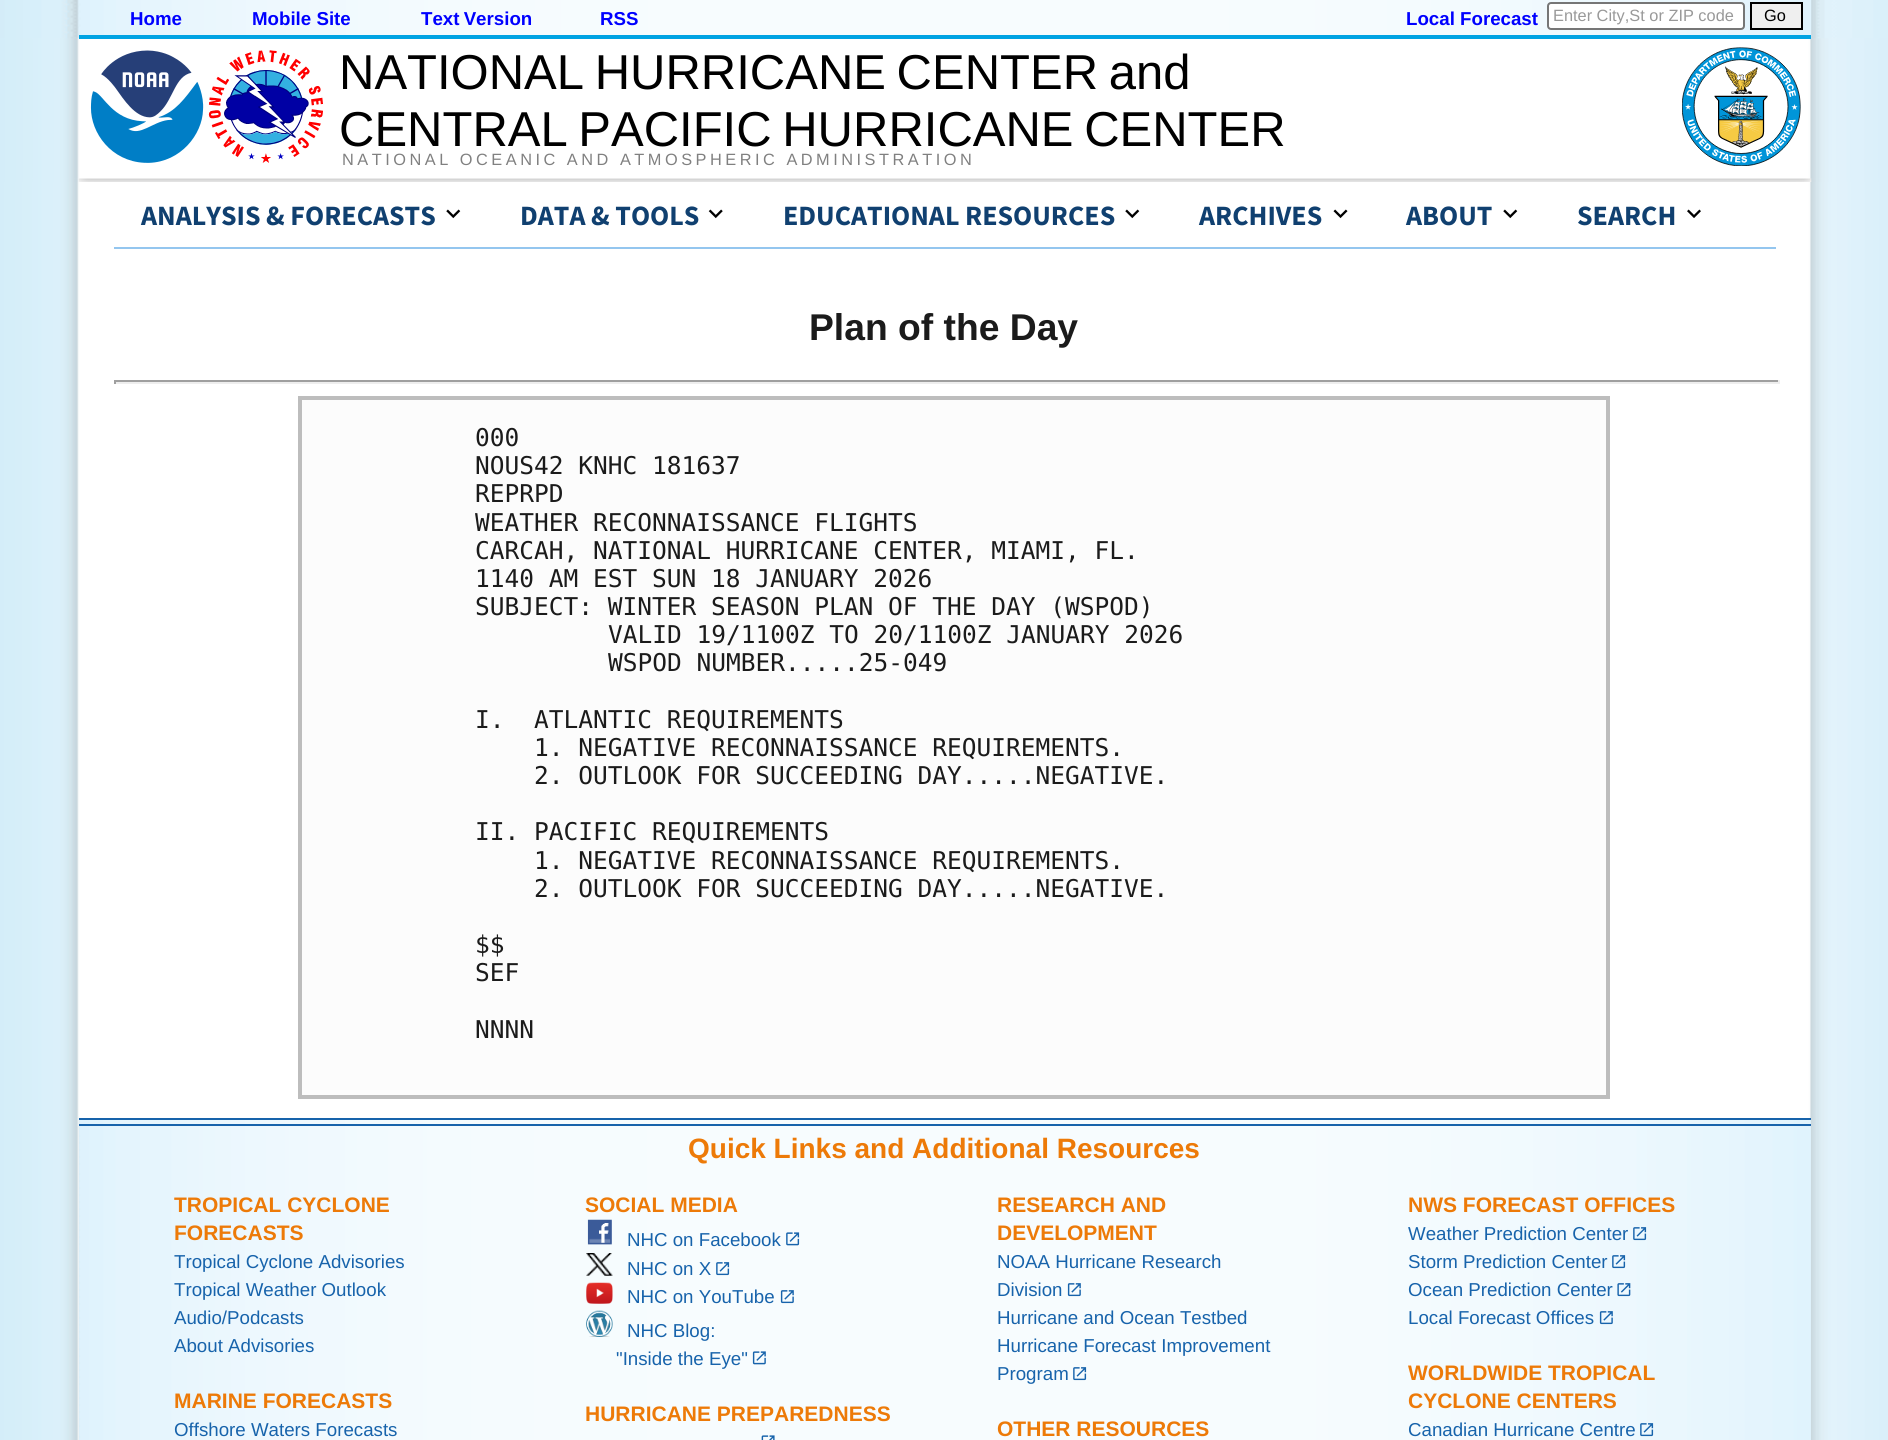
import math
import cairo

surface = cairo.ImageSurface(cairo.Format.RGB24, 1888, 1440)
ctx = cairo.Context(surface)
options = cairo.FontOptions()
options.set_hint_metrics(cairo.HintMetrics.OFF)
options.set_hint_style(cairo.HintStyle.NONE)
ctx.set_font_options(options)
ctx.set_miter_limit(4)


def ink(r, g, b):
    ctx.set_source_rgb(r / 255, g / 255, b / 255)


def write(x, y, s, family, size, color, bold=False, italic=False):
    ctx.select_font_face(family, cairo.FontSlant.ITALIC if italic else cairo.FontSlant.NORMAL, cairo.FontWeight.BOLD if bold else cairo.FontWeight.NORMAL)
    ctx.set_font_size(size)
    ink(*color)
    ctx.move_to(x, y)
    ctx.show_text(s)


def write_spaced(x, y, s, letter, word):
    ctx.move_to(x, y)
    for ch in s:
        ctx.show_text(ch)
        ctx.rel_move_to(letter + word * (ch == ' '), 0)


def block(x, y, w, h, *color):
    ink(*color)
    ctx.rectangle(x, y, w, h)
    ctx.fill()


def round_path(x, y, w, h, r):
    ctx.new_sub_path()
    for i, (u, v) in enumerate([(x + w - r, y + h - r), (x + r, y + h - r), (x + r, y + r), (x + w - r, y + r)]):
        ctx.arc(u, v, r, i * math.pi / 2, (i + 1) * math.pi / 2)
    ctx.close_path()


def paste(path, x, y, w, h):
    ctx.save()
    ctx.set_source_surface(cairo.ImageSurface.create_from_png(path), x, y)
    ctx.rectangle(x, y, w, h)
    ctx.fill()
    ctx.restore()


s1 = dict(family="Liberation Sans", size=18.7, color=(0, 0, 255), bold=True)
s2 = dict(family="Liberation Sans", size=16.35, color=(153, 153, 153))
s3 = dict(family="Liberation Sans", size=16.35, color=(0, 0, 0))
s4 = dict(family="Source Sans Pro", size=28, color=(16, 64, 112), bold=True)
s5 = dict(family="Liberation Sans", size=37.25, color=(27, 27, 27), bold=True)
s6 = dict(family="DejaVu Sans Mono", size=24.5, color=(27, 27, 27))
s7 = dict(family="Liberation Sans", size=28, color=(237, 122, 8), bold=True)
s8 = dict(family="Liberation Sans", size=21, color=(237, 122, 8), bold=True)
s9 = dict(family="Liberation Sans", size=18.7, color=(23, 99, 171))

ink(255, 255, 255)
ctx.paint()
paste("pic3.png", 0, 38, 1888, 141)
paste("pic1.png", 0, 0, 1888, 39)
paste("pic4.png", 0, 38, 1888, 141)
paste("pic2.png", 79, 0, 1733, 39)
block(79, 35, 1732, 4, 0, 163, 227)
write(130, 25, "Home", **s1)
write(252, 25, "Mobile Site", **s1)
write_spaced(421, 25, "Text Version", 0, -1)
write(600, 25, "RSS", **s1)
write(1406, 25, "Local Forecast", **s1)
ink(255, 255, 255)
round_path(1548, 3, 196, 26, 3)
ctx.fill_preserve()
ink(118, 118, 118)
ctx.stroke()
write(1553, 21, "Enter City,St or ZIP code", **s2)
ink(239, 239, 239)
ctx.rectangle(1751, 3, 51, 26)
ctx.fill_preserve()
ink(0, 0, 0)
ctx.stroke()
write(1764, 21, "Go", **s3)
paste("pic5.png", 90, 50, 114, 113)
paste("pic6.png", 208, 50, 115, 113)
ctx.set_font_size(49)
write_spaced(339, 89, "NATIONAL HURRICANE CENTER and", 0, -3)
write_spaced(339, 146, "CENTRAL PACIFIC HURRICANE CENTER", 0, -3)
paste("pic7.png", 1682, 47, 119, 119)
ctx.set_font_size(16.35)
ink(128, 128, 128)
write_spaced(342, 165, "NATIONAL OCEANIC AND ATMOSPHERIC ADMINISTRATION", 3.5, 0)
paste("pic8.png", 0, 178, 1888, 4)
paste("pic9.png", 78, 178, 1734, 4)
paste("pic10.png", 0, 182, 1888, 1258)
block(114, 247, 1662, 2, 148, 198, 239)
write(141, 225, "ANALYSIS & FORECASTS", **s4)
paste("pic11.png", 446, 209, 15, 10)
write(520, 225, "DATA & TOOLS", **s4)
paste("pic12.png", 708, 209, 15, 10)
write(783, 225, "EDUCATIONAL RESOURCES", **s4)
paste("pic11.png", 1125, 209, 15, 10)
write(1199, 225, "ARCHIVES", **s4)
paste("pic13.png", 1333, 209, 15, 10)
write(1406, 225, "ABOUT", **s4)
paste("pic11.png", 1503, 209, 15, 10)
write(1577, 225, "SEARCH", **s4)
paste("pic14.png", 1687, 209, 14, 9)
write(809, 340, "Plan of the Day", **s5)
block(114, 380, 1666, 2, 159, 159, 159)
block(1778, 380, 2, 4, 238, 238, 238)
block(114, 382, 1666, 2, 238, 238, 238)
block(114, 380, 2, 4, 159, 159, 159)
ink(252, 252, 252)
ctx.rectangle(300, 398, 1308, 699)
ctx.fill_preserve()
ink(189, 189, 189)
ctx.set_line_width(4)
ctx.stroke()
write(475, 446, "000", **s6)
write(475, 474, "NOUS42 KNHC 181637", **s6)
write(475, 502, "REPRPD", **s6)
write(475, 531, "WEATHER RECONNAISSANCE FLIGHTS", **s6)
write(475, 559, "CARCAH, NATIONAL HURRICANE CENTER, MIAMI, FL.", **s6)
write(475, 587, "1140 AM EST SUN 18 JANUARY 2026", **s6)
write(475, 615, "SUBJECT: WINTER SEASON PLAN OF THE DAY (WSPOD)", **s6)
write(608, 643, "VALID 19/1100Z TO 20/1100Z JANUARY 2026", **s6)
write(608, 671, "WSPOD NUMBER.....25-049", **s6)
write(475, 728, "I.  ATLANTIC REQUIREMENTS", **s6)
write(534, 756, "1. NEGATIVE RECONNAISSANCE REQUIREMENTS.", **s6)
write(534, 784, "2. OUTLOOK FOR SUCCEEDING DAY.....NEGATIVE.", **s6)
write(475, 840, "II. PACIFIC REQUIREMENTS", **s6)
write(534, 869, "1. NEGATIVE RECONNAISSANCE REQUIREMENTS.", **s6)
write(534, 897, "2. OUTLOOK FOR SUCCEEDING DAY.....NEGATIVE.", **s6)
write(475, 953, "$$", **s6)
write(475, 981, "SEF", **s6)
write(475, 1038, "NNNN", **s6)
paste("pic15.png", 78, 1118, 1733, 322)
block(79, 1118, 1732, 2, 23, 99, 171)
block(79, 1124, 1732, 2, 23, 99, 171)
write(688, 1158, "Quick Links and Additional Resources", **s7)
write(174, 1212, "TROPICAL CYCLONE", **s8)
write(174, 1240, "FORECASTS", **s8)
write(174, 1268, "Tropical Cyclone Advisories", **s9)
write(174, 1296, "Tropical Weather Outlook", **s9)
write(174, 1324, "Audio/Podcasts", **s9)
write(174, 1352, "About Advisories", **s9)
write(174, 1408, "MARINE FORECASTS", **s8)
write(174, 1436, "Offshore Waters Forecasts", **s9)
write(585, 1212, "SOCIAL MEDIA", **s8)
paste("pic16.png", 587, 1219, 25, 26)
write(627, 1246, "NHC on Facebook", **s9)
paste("pic17.png", 786, 1232, 14, 14)
paste("pic18.png", 586, 1253, 27, 23)
write(627, 1275, "NHC on X", **s9)
paste("pic19.png", 716, 1262, 14, 14)
paste("pic20.png", 586, 1282, 27, 22)
write(627, 1303, "NHC on YouTube", **s9)
paste("pic21.png", 780, 1290, 14, 14)
paste("pic22.png", 586, 1310, 27, 27)
write(627, 1337, "NHC Blog:", **s9)
write(616, 1365, "\"Inside the Eye\"", **s9)
paste("pic23.png", 752, 1351, 14, 14)
write(585, 1421, "HURRICANE PREPAREDNESS", **s8)
paste("pic24.png", 761, 1435, 14, 5)
write(997, 1212, "RESEARCH AND", **s8)
write(997, 1240, "DEVELOPMENT", **s8)
write(997, 1268, "NOAA Hurricane Research", **s9)
write(997, 1296, "Division", **s9)
paste("pic21.png", 1067, 1283, 14, 14)
write(997, 1324, "Hurricane and Ocean Testbed", **s9)
write(997, 1352, "Hurricane Forecast Improvement", **s9)
write(997, 1380, "Program", **s9)
paste("pic19.png", 1073, 1367, 14, 14)
write(997, 1436, "OTHER RESOURCES", **s8)
write(1408, 1212, "NWS FORECAST OFFICES", **s8)
write(1408, 1240, "Weather Prediction Center", **s9)
paste("pic25.png", 1633, 1227, 14, 14)
write(1408, 1268, "Storm Prediction Center", **s9)
paste("pic26.png", 1612, 1255, 14, 14)
write(1408, 1296, "Ocean Prediction Center", **s9)
paste("pic27.png", 1617, 1283, 14, 14)
write(1408, 1324, "Local Forecast Offices", **s9)
paste("pic28.png", 1599, 1311, 14, 14)
write(1408, 1380, "WORLDWIDE TROPICAL", **s8)
write(1408, 1408, "CYCLONE CENTERS", **s8)
write(1408, 1436, "Canadian Hurricane Centre", **s9)
paste("pic29.png", 1640, 1423, 14, 14)
surface.write_to_png("screenshot.png")
